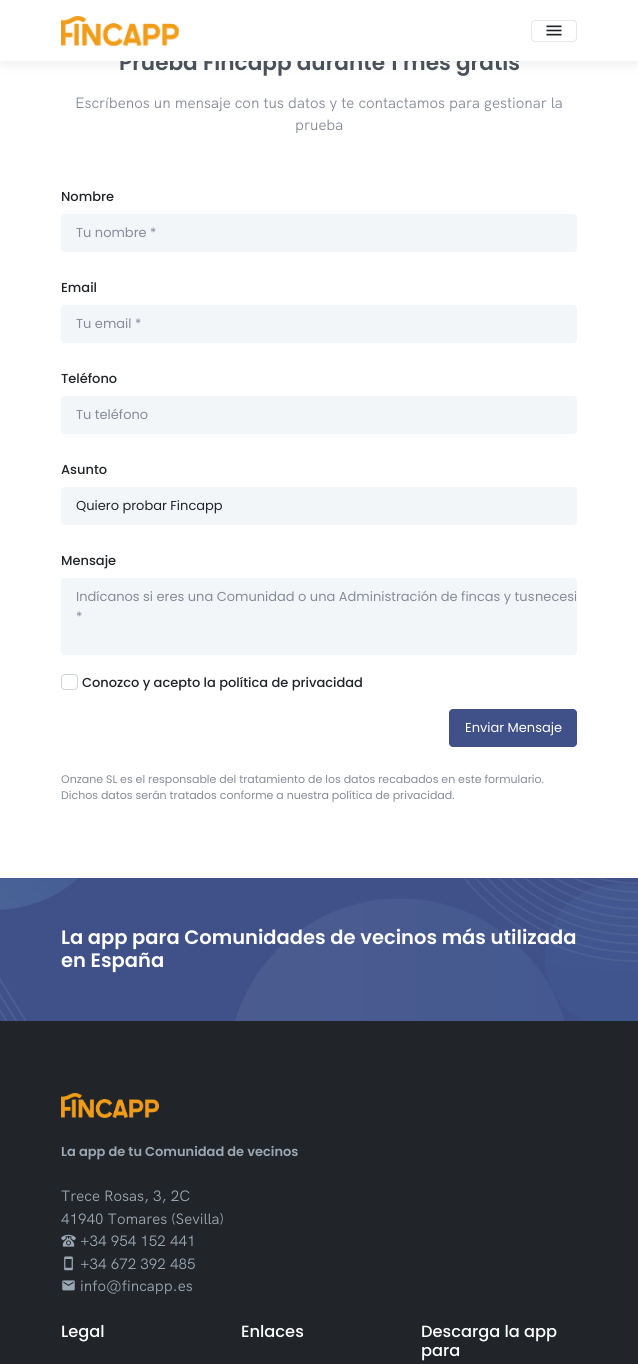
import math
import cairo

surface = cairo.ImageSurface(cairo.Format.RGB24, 638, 1364)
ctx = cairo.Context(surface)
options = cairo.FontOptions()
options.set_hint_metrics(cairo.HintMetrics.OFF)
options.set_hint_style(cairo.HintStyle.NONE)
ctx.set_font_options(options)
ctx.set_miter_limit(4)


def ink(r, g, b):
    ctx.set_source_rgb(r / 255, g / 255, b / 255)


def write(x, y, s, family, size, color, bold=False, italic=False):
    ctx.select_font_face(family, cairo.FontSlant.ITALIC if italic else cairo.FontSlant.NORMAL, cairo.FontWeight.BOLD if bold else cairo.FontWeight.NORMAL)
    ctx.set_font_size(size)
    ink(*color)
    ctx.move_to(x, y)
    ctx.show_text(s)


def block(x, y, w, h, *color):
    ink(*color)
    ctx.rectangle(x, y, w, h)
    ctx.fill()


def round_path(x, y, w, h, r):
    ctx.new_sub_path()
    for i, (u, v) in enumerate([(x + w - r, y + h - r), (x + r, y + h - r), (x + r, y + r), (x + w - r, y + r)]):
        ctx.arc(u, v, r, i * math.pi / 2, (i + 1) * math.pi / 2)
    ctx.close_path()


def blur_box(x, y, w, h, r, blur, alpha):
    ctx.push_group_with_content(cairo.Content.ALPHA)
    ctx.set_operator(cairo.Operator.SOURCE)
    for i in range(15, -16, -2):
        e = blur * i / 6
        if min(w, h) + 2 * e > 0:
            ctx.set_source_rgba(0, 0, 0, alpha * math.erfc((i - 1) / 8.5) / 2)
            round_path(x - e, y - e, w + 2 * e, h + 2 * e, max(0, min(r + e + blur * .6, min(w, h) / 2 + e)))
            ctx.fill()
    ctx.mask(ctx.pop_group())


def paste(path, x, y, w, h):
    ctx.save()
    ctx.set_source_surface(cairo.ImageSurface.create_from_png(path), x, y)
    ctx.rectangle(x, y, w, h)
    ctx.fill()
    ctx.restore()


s1 = dict(family="Poppins SemiBold", size=21.6, color=(73, 80, 87))
s2 = dict(family="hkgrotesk", size=15, color=(135, 138, 153))
s3 = dict(family="Poppins Medium", size=13, color=(33, 37, 41))
s4 = dict(family="Poppins", size=13, color=(135, 138, 153))
s5 = dict(family="Poppins", size=13, color=(33, 37, 41))
s6 = dict(family="Poppins", size=13, color=(255, 255, 255))
s7 = dict(family="Poppins", size=11, color=(135, 138, 153))
s8 = dict(family="Poppins SemiBold", size=19.5, color=(255, 255, 255))
s9 = dict(family="Poppins SemiBold", size=13, color=(155, 167, 179))
s10 = dict(family="hkgrotesk", size=15, color=(155, 167, 179))
s11 = dict(family="Poppins Medium", size=16.25, color=(255, 255, 255))

ink(255, 255, 255)
ctx.paint()
ink(56, 65, 74)
blur_box(2, 3, 634, 57, 0, 8, 0.15)
write(119, 70, "Prueba Fincapp durante 1 mes gratis", **s1)
block(0, 0, 638, 61, 255, 255, 255)
paste("pic1.png", 61, 16, 118, 30)
round_path(531.5, 20.5, 45, 21, 3.5)
ink(230, 230, 230)
ctx.set_line_width(1)
ctx.stroke()
paste("pic2.png", 546, 25, 16, 11)
write(75, 108, "Escríbenos un mensaje con tus datos y te contactamos para gestionar la", **s2)
write(295, 130, "prueba", **s2)
write(61, 201, "Nombre", **s3)
ink(243, 246, 249)
round_path(61.5, 214.5, 515, 37, 3.5)
ctx.fill_preserve()
ctx.stroke()
write(76, 237, "Tu nombre *", **s4)
write(61, 292, "Email", **s3)
ink(243, 246, 249)
round_path(61.5, 305.5, 515, 37, 3.5)
ctx.fill_preserve()
ctx.stroke()
write(76, 328, "Tu email *", **s4)
write(61, 383, "Teléfono", **s3)
ink(243, 246, 249)
round_path(61.5, 396.5, 515, 37, 3.5)
ctx.fill_preserve()
ctx.stroke()
write(76, 419, "Tu teléfono", **s4)
write(61, 474, "Asunto", **s3)
ink(243, 246, 249)
round_path(61.5, 487.5, 515, 37, 3.5)
ctx.fill_preserve()
ctx.stroke()
write(76, 510, "Quiero probar Fincapp", **s5)
write(61, 565, "Mensaje", **s3)
ink(243, 246, 249)
round_path(61.5, 578.5, 515, 76, 3.5)
ctx.fill_preserve()
ctx.stroke()
write(76, 601, "Indícanos si eres una Comunidad o una Administración de fincas y tus", **s4)
ctx.save()
round_path(62, 579, 514, 75, 3)
ctx.clip()
write(535, 601, "necesi", **s4)
ctx.restore()
write(76, 621, "*", **s4)
round_path(61.5, 674.5, 16, 15, 3.5)
ink(206, 212, 218)
ctx.stroke()
write(82, 687, "Conozco y acepto la política de privacidad", **s3)
ink(64, 81, 137)
round_path(449.5, 709.5, 127, 37, 3.5)
ctx.fill_preserve()
ctx.stroke()
write(465, 732, "Enviar Mensaje", **s6)
write(61, 783, "Onzane SL es el responsable del tratamiento de los datos recabados en este formulario.", **s7)
write(61, 799, "Dichos datos serán tratados conforme a nuestra política de privacidad.", **s7)
block(0, 878, 638, 143, 64, 81, 137)
paste("pic3.png", 0, 878, 638, 143)
write(61, 944, "La app para Comunidades de vecinos más utilizada", **s8)
write(61, 967, "en España", **s8)
block(0, 1021, 638, 343, 33, 37, 41)
paste("pic4.png", 61, 1093, 98, 25)
write(61, 1156, "La app de tu Comunidad de vecinos", **s9)
write(61, 1201, "Trece Rosas, 3, 2C", **s10)
write(61, 1224, "41940 Tomares (Sevilla)", **s10)
paste("pic5.png", 61, 1234, 15, 13)
write(80, 1246, "+34 954 152 441", **s10)
paste("pic6.png", 64, 1256, 9, 15)
write(80, 1269, "+34 672 392 485", **s10)
paste("pic7.png", 62, 1280, 13, 11)
write(80, 1291, "info@fincapp.es", **s10)
write(61, 1337, "Legal", **s11)
write(241, 1337, "Enlaces", **s11)
write(421, 1337, "Descarga la app", **s11)
write(421, 1356, "para", **s11)
surface.write_to_png("screenshot.png")
